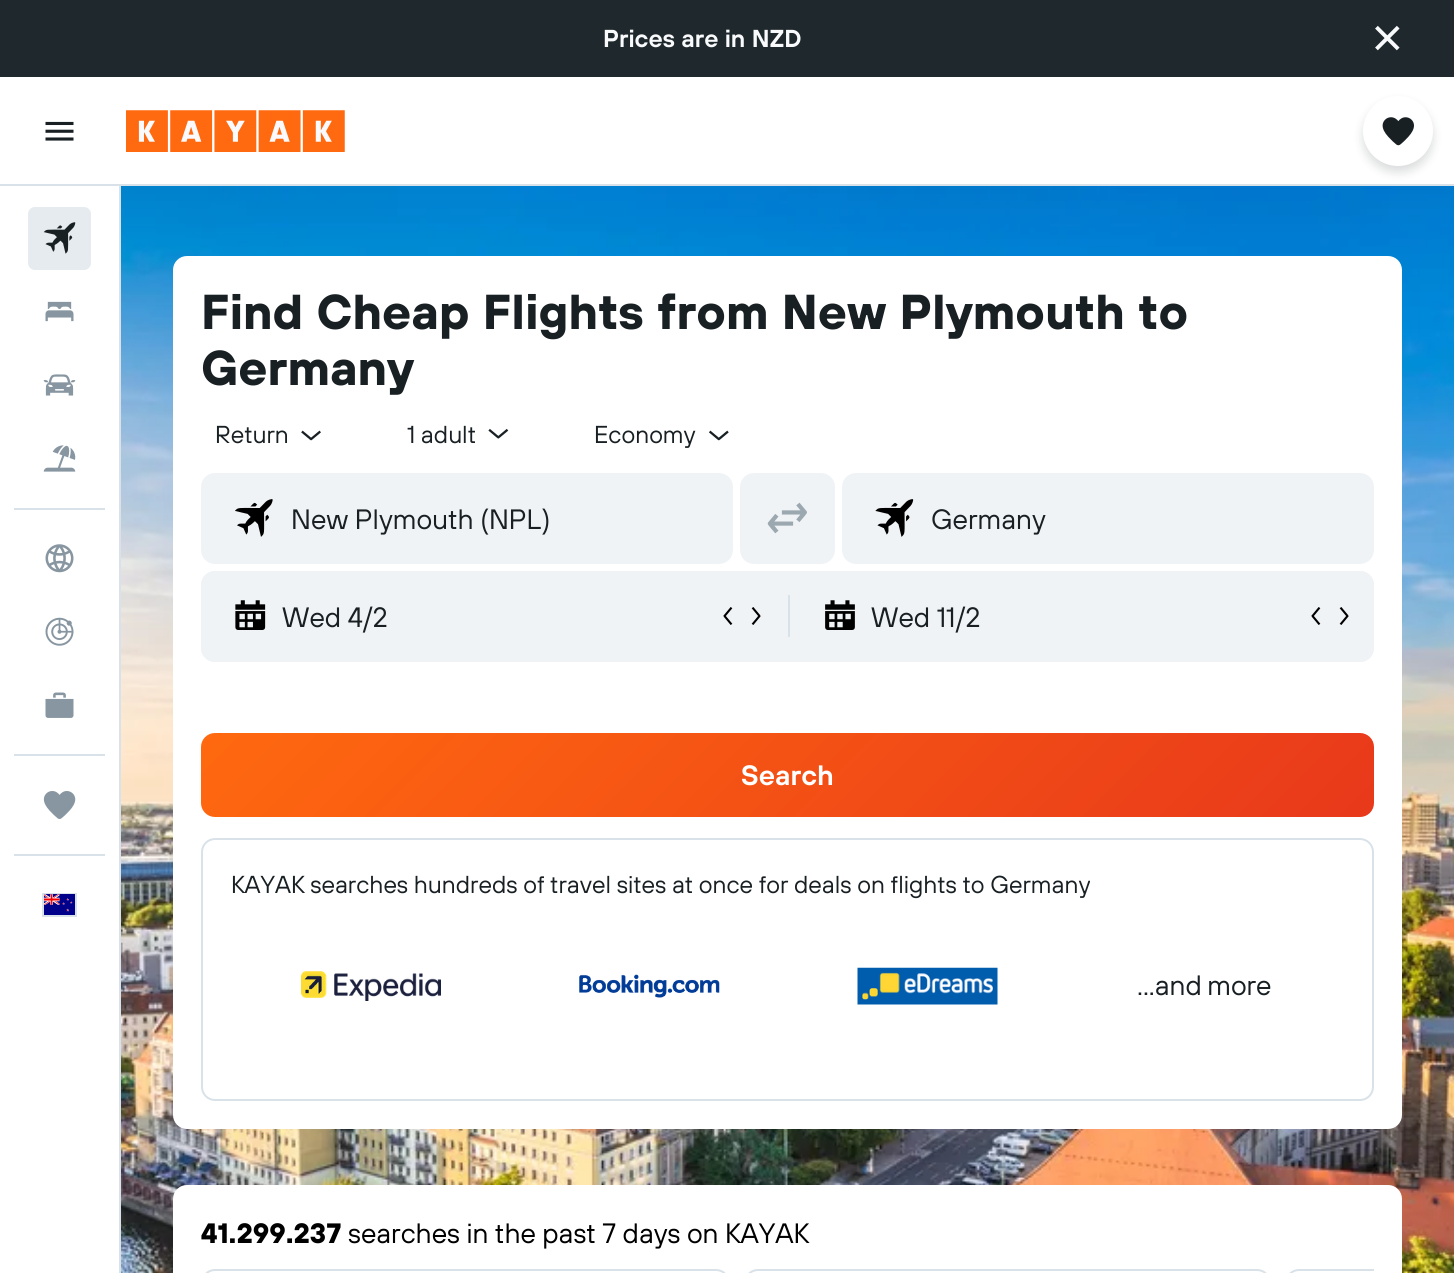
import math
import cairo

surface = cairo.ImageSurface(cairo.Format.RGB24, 1454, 1273)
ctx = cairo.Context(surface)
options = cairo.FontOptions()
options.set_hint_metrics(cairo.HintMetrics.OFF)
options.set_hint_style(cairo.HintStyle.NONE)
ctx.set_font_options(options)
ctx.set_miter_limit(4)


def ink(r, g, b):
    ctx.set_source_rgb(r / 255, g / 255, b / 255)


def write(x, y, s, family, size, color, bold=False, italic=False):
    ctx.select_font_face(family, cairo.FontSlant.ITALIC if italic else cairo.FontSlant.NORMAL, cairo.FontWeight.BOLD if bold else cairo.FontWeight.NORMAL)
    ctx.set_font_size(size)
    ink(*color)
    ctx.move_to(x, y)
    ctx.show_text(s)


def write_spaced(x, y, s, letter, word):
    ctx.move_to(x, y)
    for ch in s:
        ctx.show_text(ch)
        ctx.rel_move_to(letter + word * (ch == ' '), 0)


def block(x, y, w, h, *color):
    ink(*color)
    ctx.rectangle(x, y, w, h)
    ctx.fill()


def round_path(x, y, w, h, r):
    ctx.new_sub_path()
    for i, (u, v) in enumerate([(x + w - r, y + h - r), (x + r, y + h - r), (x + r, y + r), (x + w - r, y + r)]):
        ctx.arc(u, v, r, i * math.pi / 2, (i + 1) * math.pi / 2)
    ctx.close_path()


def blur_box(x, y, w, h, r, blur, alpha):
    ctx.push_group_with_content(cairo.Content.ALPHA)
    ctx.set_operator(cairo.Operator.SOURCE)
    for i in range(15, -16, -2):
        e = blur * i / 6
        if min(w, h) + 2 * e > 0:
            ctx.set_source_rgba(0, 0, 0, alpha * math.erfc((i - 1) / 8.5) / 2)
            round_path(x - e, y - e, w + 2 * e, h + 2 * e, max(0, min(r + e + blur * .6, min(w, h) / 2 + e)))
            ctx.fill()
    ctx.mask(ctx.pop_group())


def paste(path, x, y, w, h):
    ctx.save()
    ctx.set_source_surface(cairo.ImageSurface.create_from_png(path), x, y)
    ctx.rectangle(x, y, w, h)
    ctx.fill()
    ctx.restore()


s1 = dict(family="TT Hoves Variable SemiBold", size=24.5, color=(249, 250, 251))
s2 = dict(family="TT Hoves Variable", size=49, color=(25, 32, 36), bold=True)
s3 = dict(family="TT Hoves Variable", size=24.5, color=(25, 32, 36))
s4 = dict(family="TT Hoves Variable", size=28, color=(25, 32, 36))
s5 = dict(family="TT Hoves Variable SemiBold", size=28, color=(255, 255, 255))
s6 = dict(family="TT Hoves Variable", size=28, color=(0, 0, 0), bold=True)
s7 = dict(family="TT Hoves Variable", size=28, color=(0, 0, 0))

ink(255, 255, 255)
ctx.paint()
block(0, 0, 1454, 77, 31, 40, 45)
write(603, 47, "Prices are in NZD", **s1)
paste("pic1.png", 1375, 25, 25, 26)
block(0, 184, 1454, 2, 217, 226, 232)
paste("pic2.png", 45, 121, 29, 20)
paste("pic3.png", 126, 110, 219, 42)
paste("pic14.png", 121, 186, 1333, 1087)
ink(25, 32, 36)
blur_box(1363, 102, 70, 70, 35, 5, 0.16)
ink(255, 255, 255)
ctx.arc(1398, 131, 35, 0, 2 * math.pi)
ctx.fill()
paste("pic4.png", 1382, 117, 32, 29)
block(119, 186, 2, 1087, 217, 226, 232)
ink(230, 235, 239)
round_path(28, 207, 63, 63, 7)
ctx.fill()
paste("pic5.png", 43, 222, 33, 32)
paste("pic6.png", 45, 301, 29, 21)
paste("pic7.png", 43, 374, 33, 22)
paste("pic8.png", 43, 445, 33, 27)
block(14, 508, 91, 2, 217, 226, 232)
paste("pic9.png", 45, 544, 29, 29)
paste("pic10.png", 45, 617, 29, 29)
paste("pic11.png", 45, 692, 29, 26)
block(14, 754, 91, 2, 217, 226, 232)
paste("pic12.png", 43, 791, 33, 28)
block(14, 854, 91, 2, 217, 226, 232)
ctx.rectangle(43, 894, 33, 22)
ctx.stroke()
paste("pic13.png", 44, 894, 31, 21)
ink(255, 255, 255)
round_path(173, 256, 1229, 873, 14)
ctx.fill()
write(201, 329, "Find Cheap Flights from New Plymouth to", **s2)
write(201, 385, "Germany", **s2)
write(215, 443, "Return", **s3)
paste("pic15.png", 301, 430, 20, 11)
write(407, 443, "1 adult", **s3)
paste("pic16.png", 488, 428, 21, 11)
write(594, 443, "Economy", **s3)
paste("pic17.png", 709, 430, 20, 11)
ink(240, 243, 245)
round_path(202, 474, 530, 89, 13)
ctx.fill_preserve()
ctx.stroke()
paste("pic18.png", 235, 499, 38, 38)
write(291, 529, "New Plymouth (NPL)", **s4)
ink(240, 243, 245)
round_path(740, 473, 95, 91, 14)
ctx.fill()
paste("pic19.png", 767, 502, 40, 32)
round_path(843, 474, 530, 89, 13)
ctx.fill_preserve()
ctx.stroke()
paste("pic20.png", 875, 499, 39, 38)
write(931, 529, "Germany", **s4)
ink(240, 243, 245)
round_path(201, 571, 1173, 91, 14)
ctx.fill()
round_path(201, 571, 585, 91, 14)
ctx.fill()
paste("pic21.png", 235, 600, 31, 30)
write(282, 627, "Wed 4/2", **s4)
paste("pic22.png", 723, 607, 10, 18)
paste("pic23.png", 751, 607, 10, 18)
block(788, 595, 2, 42, 217, 226, 232)
ink(240, 243, 245)
round_path(791, 571, 583, 91, 14)
ctx.fill()
paste("pic24.png", 825, 600, 30, 30)
write(871, 627, "Wed 11/2", **s4)
paste("pic22.png", 1311, 607, 10, 18)
paste("pic23.png", 1339, 607, 10, 18)
gradient = cairo.LinearGradient(473, 461, 1102, 1089)
gradient.add_color_stop_rgba(0, 1, 0.412, 0.059, 1)
gradient.add_color_stop_rgba(1, 0.91, 0.22, 0.106, 1)
ctx.set_source(gradient)
round_path(201, 733, 1173, 84, 14)
ctx.fill()
write(741, 785, "Search", **s5)
round_path(202, 839, 1171, 261, 13)
ink(217, 226, 232)
ctx.stroke()
write(231, 893, "KAYAK searches hundreds of travel sites at once for deals on flights to Germany", **s3)
paste("pic25.png", 301, 971, 140, 30)
paste("pic26.png", 579, 974, 141, 24)
paste("pic27.png", 857, 967, 141, 38)
ctx.set_font_size(28)
write_spaced(1137, 995, "...and more", 0, -1)
ink(255, 255, 255)
round_path(173, 1185, 1229, 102, 14)
ctx.fill()
write(201, 1243, "41.299.237", **s6)
write(348, 1243, "searches in the past 7 days on KAYAK", **s7)
round_path(202, 1270, 527, 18, 13)
ink(217, 226, 232)
ctx.stroke()
round_path(745, 1270, 525, 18, 13)
ctx.stroke()
ctx.save()
ctx.rectangle(201, 1269, 1173, 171)
ctx.clip()
round_path(1286, 1270, 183, 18, 13)
ctx.stroke()
ctx.restore()
surface.write_to_png("screenshot.png")
